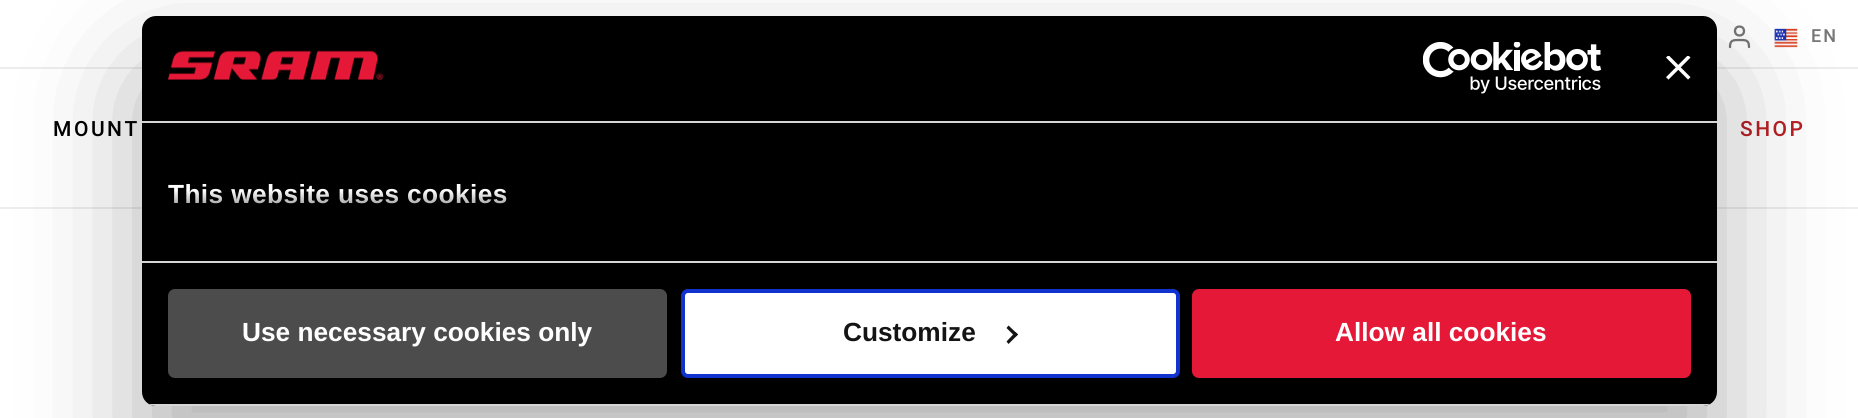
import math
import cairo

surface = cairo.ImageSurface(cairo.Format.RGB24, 1858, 418)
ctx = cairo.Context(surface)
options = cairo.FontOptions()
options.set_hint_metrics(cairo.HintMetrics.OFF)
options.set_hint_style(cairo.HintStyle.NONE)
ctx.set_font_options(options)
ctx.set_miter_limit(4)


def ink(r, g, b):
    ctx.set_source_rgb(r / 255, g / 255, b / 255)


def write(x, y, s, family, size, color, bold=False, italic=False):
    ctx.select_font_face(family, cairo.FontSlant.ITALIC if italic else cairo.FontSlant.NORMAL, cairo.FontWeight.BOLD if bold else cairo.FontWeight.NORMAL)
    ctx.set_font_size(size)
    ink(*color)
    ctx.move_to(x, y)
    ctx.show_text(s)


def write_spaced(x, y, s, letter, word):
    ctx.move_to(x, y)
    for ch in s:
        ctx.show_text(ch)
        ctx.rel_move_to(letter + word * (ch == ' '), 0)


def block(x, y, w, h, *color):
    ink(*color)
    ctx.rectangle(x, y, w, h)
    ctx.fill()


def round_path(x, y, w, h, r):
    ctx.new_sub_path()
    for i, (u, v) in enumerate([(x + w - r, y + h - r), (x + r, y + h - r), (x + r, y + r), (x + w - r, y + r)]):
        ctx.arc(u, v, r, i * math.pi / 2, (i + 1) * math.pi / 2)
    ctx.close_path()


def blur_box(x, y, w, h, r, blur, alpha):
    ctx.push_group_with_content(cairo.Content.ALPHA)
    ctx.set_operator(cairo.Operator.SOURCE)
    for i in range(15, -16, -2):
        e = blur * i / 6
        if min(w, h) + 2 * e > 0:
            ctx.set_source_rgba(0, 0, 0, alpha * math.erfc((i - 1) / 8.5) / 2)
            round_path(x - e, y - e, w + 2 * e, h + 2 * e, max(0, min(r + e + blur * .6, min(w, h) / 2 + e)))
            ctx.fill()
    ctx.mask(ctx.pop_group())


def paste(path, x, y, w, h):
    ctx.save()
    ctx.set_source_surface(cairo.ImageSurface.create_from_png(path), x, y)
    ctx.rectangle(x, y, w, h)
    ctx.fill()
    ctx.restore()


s1 = dict(family="Liberation Sans", size=26.25, color=(255, 255, 255), bold=True)
s2 = dict(family="Liberation Sans", size=26.25, color=(20, 20, 20), bold=True)

ink(255, 255, 255)
ctx.paint()
block(0, 207, 1858, 2, 237, 237, 238)
block(0, 67, 1858, 2, 237, 237, 238)
ctx.arc(1739.5, 31, 4.5, 0, 2 * math.pi)
ink(118, 118, 118)
ctx.set_line_width(2.3)
ctx.stroke()
ctx.new_path()
ctx.move_to(1749, 47)
ctx.curve_to(1749, 40, 1746, 40, 1739.5, 40)
ctx.curve_to(1733, 40, 1730, 40, 1730, 47)
ctx.set_line_cap(cairo.LineCap.ROUND)
ctx.set_line_join(cairo.LineJoin.ROUND)
ctx.stroke()
paste("pic1.png", 1774, 28, 24, 20)
ctx.select_font_face("Roboto Medium")
ctx.set_font_size(18)
write_spaced(1811, 42, "EN", 2, 0)
ctx.set_font_size(21)
ink(0, 0, 0)
write_spaced(53, 136, "MOUNT", 2.5, 0)
ink(184, 32, 37)
write_spaced(1740, 136, "SHOP", 2.5, 0)
ink(0, 0, 0)
blur_box(142, 72, 1575, 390, 14, 59.5, 0.3)
ink(0, 0, 0)
round_path(142, 16, 1575, 390, 14)
ctx.fill()
block(142, 121, 1575, 2, 214, 214, 214)
paste("pic2.png", 168, 50, 216, 30)
paste("pic3.png", 1423, 42, 178, 52)
paste("pic4.png", 1666, 56, 25, 24)
block(142, 261, 1575, 2, 214, 214, 214)
ctx.select_font_face("Liberation Sans", cairo.FontSlant.NORMAL, cairo.FontWeight.BOLD)
ctx.set_font_size(26.25)
ink(255, 255, 255)
write_spaced(168, 203, "This website uses cookies", 0.4, 0)
gradient = cairo.LinearGradient(918, 260, 918, 190)
gradient.add_color_stop_rgba(0, 0, 0, 0, 1)
gradient.add_color_stop_rgba(0.5, 0, 0, 0, 0.8)
gradient.add_color_stop_rgba(1, 0, 0, 0, 0)
ctx.set_source(gradient)
ctx.rectangle(174, 191, 334, 13)
ctx.fill()
ctx.save()
round_path(142, 16, 1575, 390, 14)
ctx.clip()
block(142, 404, 1575, 2, 214, 214, 214)
ctx.restore()
ink(76, 76, 76)
round_path(170, 291, 495, 85, 5)
ctx.fill_preserve()
ctx.set_line_width(4)
ctx.set_line_cap(cairo.LineCap.BUTT)
ctx.set_line_join(cairo.LineJoin.MITER)
ctx.stroke()
write(242, 341, "Use necessary cookies only", **s1)
round_path(683, 291, 495, 85, 5)
ctx.fill_preserve()
ink(16, 50, 207)
ctx.stroke()
write(843, 341, "Customize", **s2)
ctx.new_path()
ctx.move_to(1008.5, 325.5)
ctx.line_to(1018, 334.5)
ctx.line_to(1015.5, 337)
ctx.line_to(1006.5, 328)
ctx.close_path()
ctx.fill()
ctx.new_path()
ctx.move_to(1015.5, 332)
ctx.line_to(1018, 334.5)
ctx.line_to(1008.5, 344)
ctx.line_to(1006.5, 341.5)
ctx.close_path()
ctx.fill()
ink(229, 25, 55)
round_path(1194, 291, 495, 85, 5)
ctx.fill_preserve()
ctx.stroke()
write(1335, 341, "Allow all cookies", **s1)
surface.write_to_png("screenshot.png")
